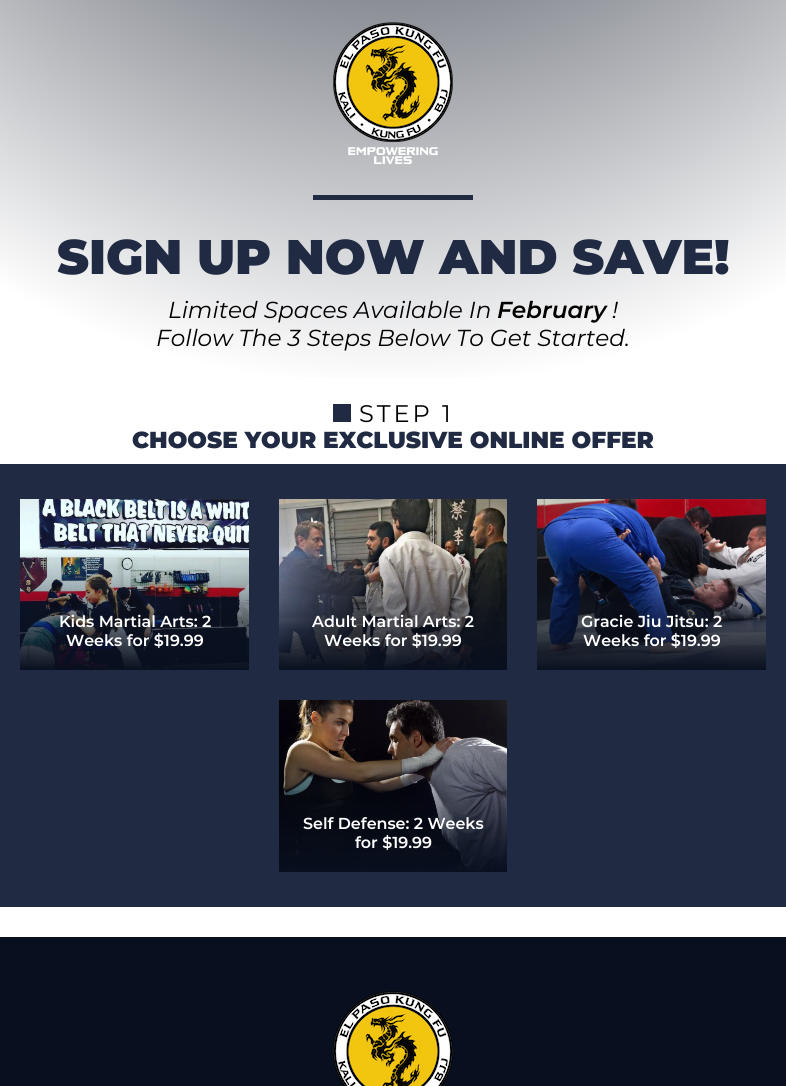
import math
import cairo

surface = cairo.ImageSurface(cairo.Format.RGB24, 786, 1086)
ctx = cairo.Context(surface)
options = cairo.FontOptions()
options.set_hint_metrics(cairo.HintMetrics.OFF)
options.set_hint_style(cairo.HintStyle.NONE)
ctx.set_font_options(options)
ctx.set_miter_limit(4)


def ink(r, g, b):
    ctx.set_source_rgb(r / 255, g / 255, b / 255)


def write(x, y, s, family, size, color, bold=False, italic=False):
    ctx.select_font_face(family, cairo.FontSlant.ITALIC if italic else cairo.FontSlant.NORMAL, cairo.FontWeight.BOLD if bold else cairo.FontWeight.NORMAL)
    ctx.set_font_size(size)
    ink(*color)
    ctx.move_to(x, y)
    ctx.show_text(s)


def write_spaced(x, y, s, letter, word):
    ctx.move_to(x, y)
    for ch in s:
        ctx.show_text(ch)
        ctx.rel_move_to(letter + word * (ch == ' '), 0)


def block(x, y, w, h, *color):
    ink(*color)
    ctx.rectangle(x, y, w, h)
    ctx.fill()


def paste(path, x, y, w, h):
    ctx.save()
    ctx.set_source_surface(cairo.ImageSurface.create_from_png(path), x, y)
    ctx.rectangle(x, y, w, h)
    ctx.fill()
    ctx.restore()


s1 = dict(family="Montserrat Black", size=48.6, color=(32, 43, 67))
s2 = dict(family="Montserrat", size=23.15, color=(0, 0, 0), italic=True)
s3 = dict(family="Montserrat SemiBold", size=23.15, color=(0, 0, 0), italic=True)
s4 = dict(family="Montserrat Black", size=23.15, color=(32, 43, 67))
s5 = dict(family="Montserrat SemiBold", size=15.9, color=(255, 255, 255))

ink(255, 255, 255)
ctx.paint()
gradient = cairo.RadialGradient(393, -435, 0, 393, -435, 1158)
gradient.add_color_stop_rgba(0, 0.031, 0.059, 0.118, 1)
gradient.add_color_stop_rgba(0.71, 1, 1, 1, 1)
ctx.set_source(gradient)
ctx.rectangle(0, 0, 786, 378)
ctx.fill()
paste("pic1.png", 333, 22, 120, 143)
block(313, 195, 160, 5, 32, 43, 67)
write(57, 274, "SIGN UP NOW AND SAVE!", **s1)
write(168, 318, "Limited Spaces Available In", **s2)
write(497, 318, "February", **s3)
write(612, 318, "!", **s2)
write(156, 346, "Follow The 3 Steps Below To Get Started.", **s2)
block(333, 404, 18, 18, 32, 43, 67)
ctx.select_font_face("Montserrat")
ctx.set_font_size(24)
ink(0, 0, 0)
write_spaced(359, 422, "STEP 1", 3, 0)
write(132, 448, "CHOOSE YOUR EXCLUSIVE ONLINE OFFER", **s4)
block(0, 464, 786, 443, 32, 43, 67)
paste("pic2.png", 20, 499, 229, 171)
write(59, 627, "Kids Martial Arts: 2", **s5)
write(66, 646, "Weeks for $19.99", **s5)
paste("pic3.png", 279, 499, 228, 171)
write(312, 627, "Adult Martial Arts: 2", **s5)
write(324, 646, "Weeks for $19.99", **s5)
paste("pic4.png", 537, 499, 229, 171)
write(581, 627, "Gracie Jiu Jitsu: 2", **s5)
write(583, 646, "Weeks for $19.99", **s5)
paste("pic5.png", 279, 700, 228, 172)
write(303, 829, "Self Defense: 2 Weeks", **s5)
write(355, 848, "for $19.99", **s5)
block(0, 937, 786, 149, 8, 15, 30)
paste("pic6.png", 333, 991, 120, 95)
surface.write_to_png("screenshot.png")
